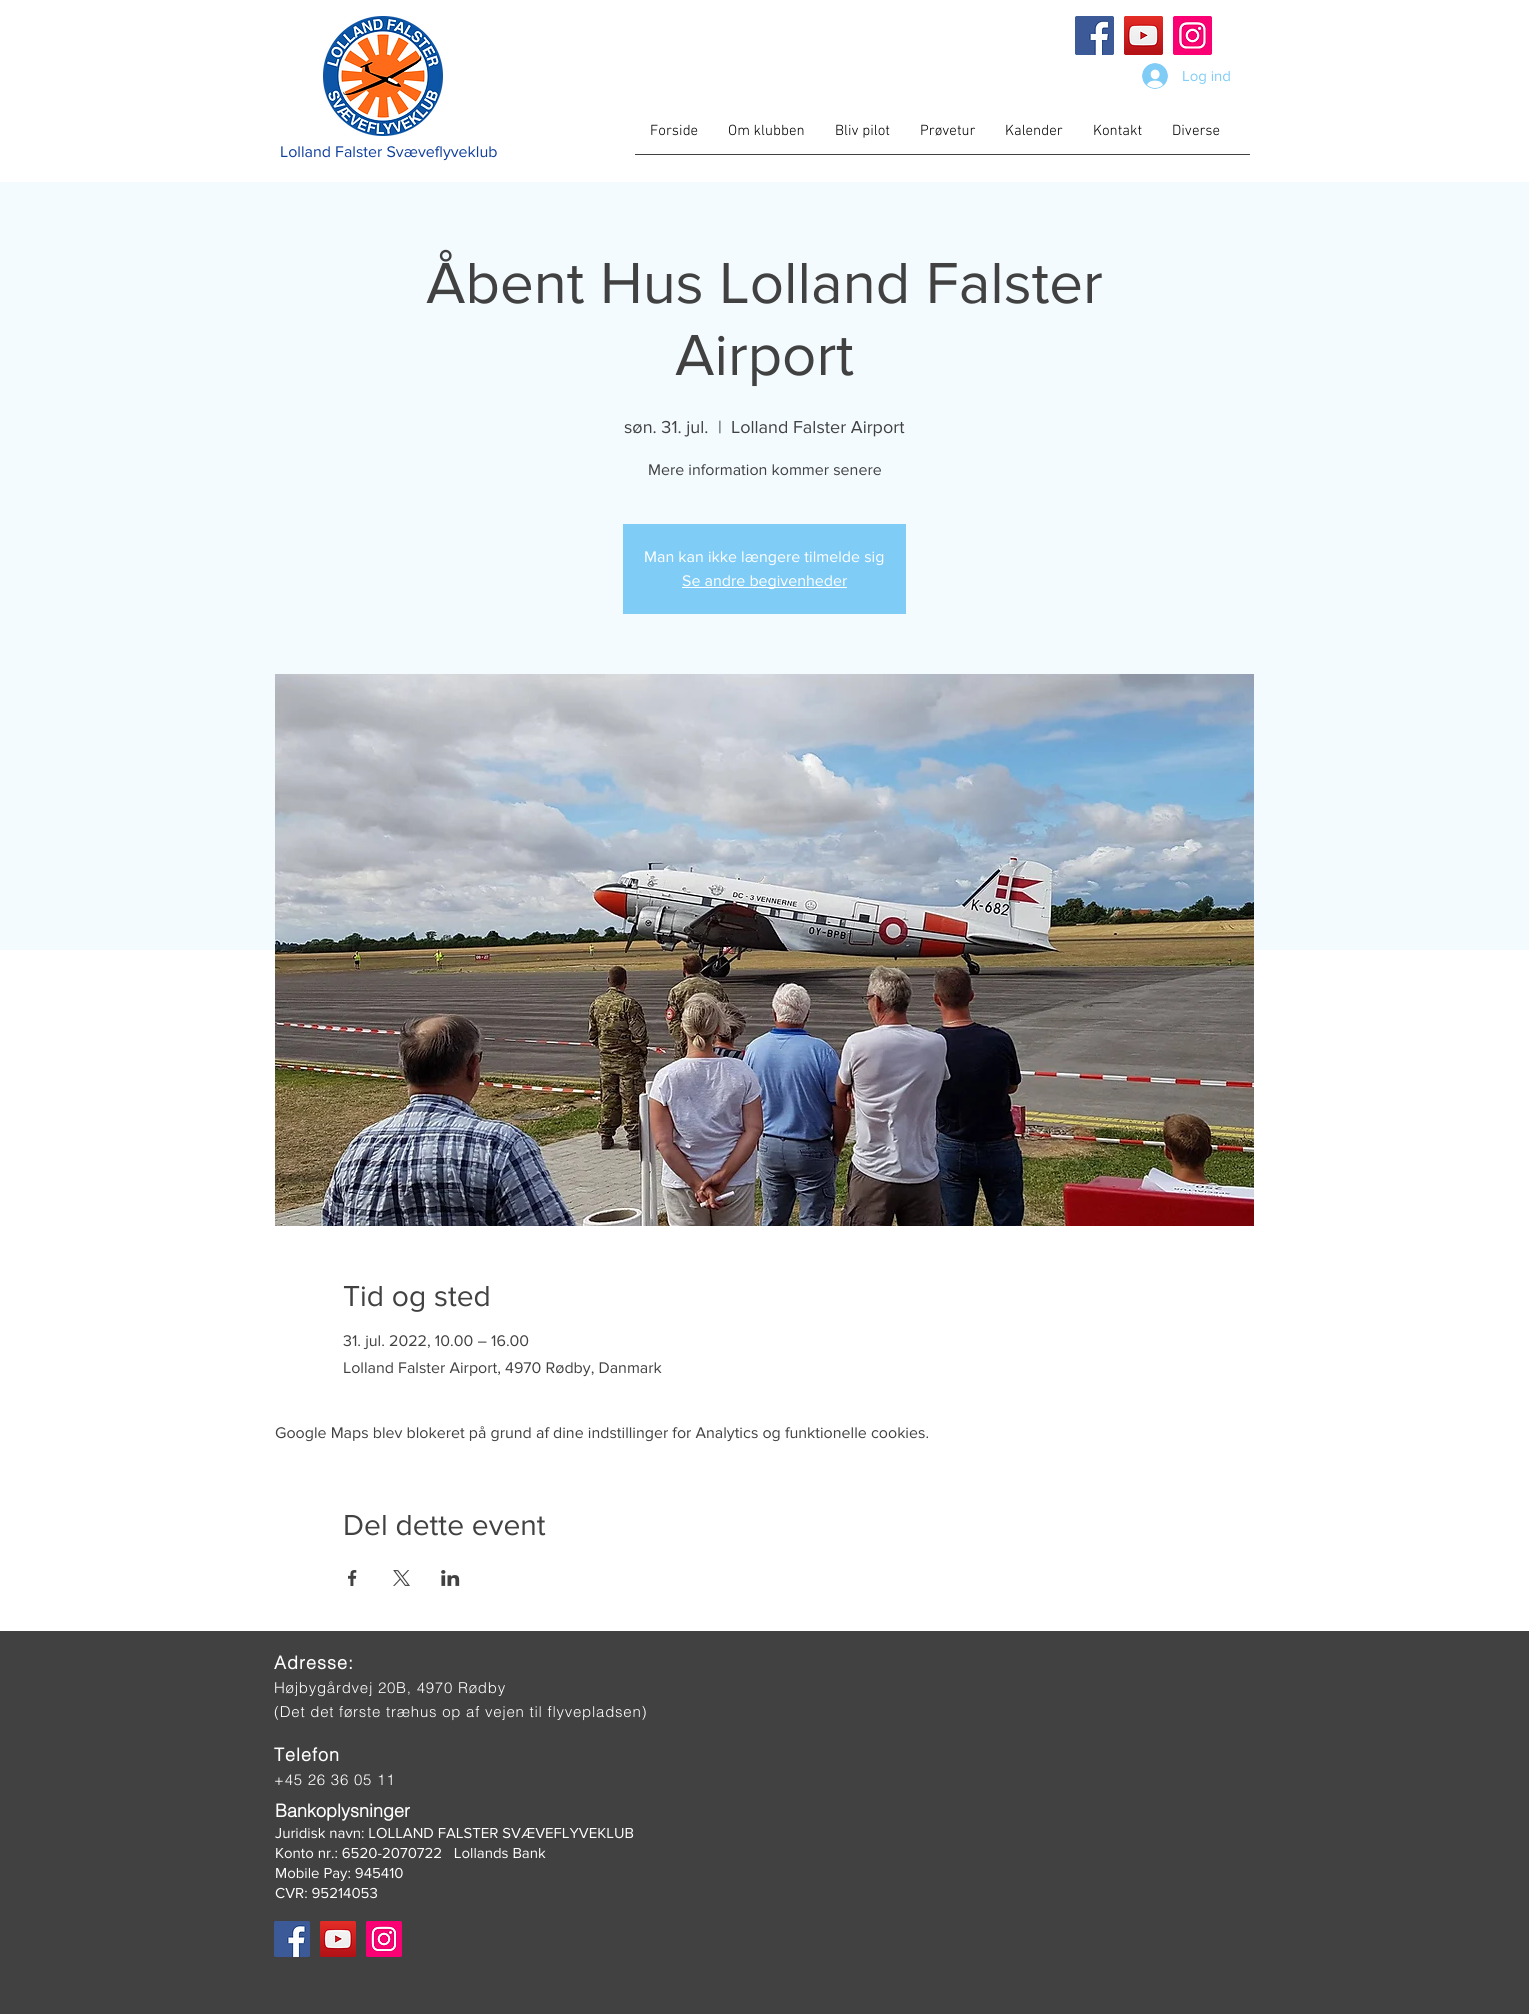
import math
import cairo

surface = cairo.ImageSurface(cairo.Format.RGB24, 1529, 2015)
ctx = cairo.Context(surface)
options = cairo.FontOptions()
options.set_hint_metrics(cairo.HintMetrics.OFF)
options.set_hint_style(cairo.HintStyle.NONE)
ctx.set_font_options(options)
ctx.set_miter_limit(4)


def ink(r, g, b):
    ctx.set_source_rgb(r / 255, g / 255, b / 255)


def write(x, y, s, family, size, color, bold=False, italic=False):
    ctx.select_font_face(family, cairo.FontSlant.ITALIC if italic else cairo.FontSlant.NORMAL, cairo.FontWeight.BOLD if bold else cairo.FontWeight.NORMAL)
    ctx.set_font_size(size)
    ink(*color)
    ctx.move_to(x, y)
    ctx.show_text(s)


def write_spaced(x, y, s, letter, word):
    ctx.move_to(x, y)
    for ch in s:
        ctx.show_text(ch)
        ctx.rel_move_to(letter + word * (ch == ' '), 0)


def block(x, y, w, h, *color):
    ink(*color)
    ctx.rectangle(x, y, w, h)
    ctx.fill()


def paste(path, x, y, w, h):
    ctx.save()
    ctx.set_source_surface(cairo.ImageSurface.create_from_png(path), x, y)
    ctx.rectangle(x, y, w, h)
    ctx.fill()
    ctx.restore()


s1 = dict(family="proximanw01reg", size=15, color=(127, 204, 247))
s2 = dict(family="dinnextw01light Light", size=15, color=(0, 0, 0))
s3 = dict(family="proximanw01reg", size=16, color=(14, 62, 155))
s4 = dict(family="proximanw01reg", size=60, color=(65, 65, 65))
s5 = dict(family="proximanw01reg", size=18, color=(65, 65, 65))
s6 = dict(family="proximanw01reg", size=16, color=(65, 65, 65))
s7 = dict(family="proximanw01reg", size=16, color=(255, 255, 255))
s8 = dict(family="proximanw01reg", size=30, color=(65, 65, 65))
s9 = dict(family="helvetica", size=18, color=(255, 255, 255), bold=True)
s10 = dict(family="proximanw01reg", size=15, color=(255, 255, 255))

ink(255, 255, 255)
ctx.paint()
paste("pic1.png", 323, 16, 120, 120)
paste("pic2.png", 1075, 16, 39, 39)
paste("pic3.png", 1124, 16, 39, 39)
paste("pic4.png", 1173, 16, 39, 39)
paste("pic5.png", 1142, 63, 26, 26)
write(1182, 81, "Log ind", **s1)
write(650, 135, "Forside", **s2)
write(728, 135, "Om klubben", **s2)
write(835, 135, "Bliv pilot", **s2)
write(920, 135, "Prøvetur", **s2)
write(1005, 135, "Kalender", **s2)
write(1093, 135, "Kontakt", **s2)
write(1172, 135, "Diverse", **s2)
block(635, 154, 615, 1, 65, 65, 65)
write(280, 157, "Lolland Falster Svæveflyveklub", **s3)
block(0, 182, 1529, 768, 243, 251, 255)
write(426, 303, "Åbent Hus Lolland Falster", **s4)
write(675, 375, "Airport", **s4)
write(624, 433, "søn. 31. jul.", **s5)
write(718, 433, "|", **s5)
write(731, 433, "Lolland Falster Airport", **s5)
write(648, 475, "Mere information kommer senere", **s6)
block(623, 524, 283, 90, 127, 204, 247)
write(644, 562, "Man kan ikke længere tilmelde sig", **s7)
block(682, 587, 165, 1, 255, 255, 255)
write(682, 586, "Se andre begivenheder", **s7)
paste("pic6.png", 275, 674, 979, 552)
write(343, 1306, "Tid og sted", **s8)
write(343, 1346, "31. jul. 2022, 10.00 – 16.00", **s6)
write(343, 1373, "Lolland Falster Airport, 4970 Rødby, Danmark", **s6)
write(275, 1438, "Google Maps blev blokeret på grund af dine indstillinger for Analytics og funktionelle cookies.", **s6)
write(343, 1535, "Del dette event", **s8)
paste("pic7.png", 348, 1570, 9, 16)
paste("pic8.png", 393, 1570, 17, 16)
paste("pic9.png", 441, 1570, 19, 16)
block(0, 1631, 1529, 383, 65, 65, 65)
ctx.select_font_face("helvetica", cairo.FontSlant.NORMAL, cairo.FontWeight.BOLD)
ctx.set_font_size(18)
ink(255, 255, 255)
write_spaced(274, 1669, "Adresse:", 1, 0)
ctx.select_font_face("helvetica Light")
ctx.set_font_size(15)
write_spaced(274, 1693, "Højbygårdvej 20B, 4970 Rødby", 0.75, 0)
write_spaced(274, 1717, "(Det det første træhus op af vejen til flyvepladsen)", 0.75, 0)
ctx.select_font_face("helvetica", cairo.FontSlant.NORMAL, cairo.FontWeight.BOLD)
ctx.set_font_size(18)
write_spaced(274, 1761, "Telefon", 1, 0)
ctx.select_font_face("helvetica Light")
ctx.set_font_size(15)
write_spaced(274, 1785, "+45 26 36 05 11", 0.75, 0)
write(275, 1817, "Bankoplysninger", **s9)
write(275, 1838, "Juridisk navn: LOLLAND FALSTER SVÆVEFLYVEKLUB", **s10)
write(275, 1858, "Konto nr.: 6520-2070722   Lollands Bank", **s10)
write(275, 1878, "Mobile Pay: 945410", **s10)
write(275, 1898, "CVR: 95214053", **s10)
paste("pic10.png", 274, 1921, 36, 36)
paste("pic11.png", 320, 1921, 36, 36)
paste("pic12.png", 366, 1921, 36, 36)
surface.write_to_png("screenshot.png")
